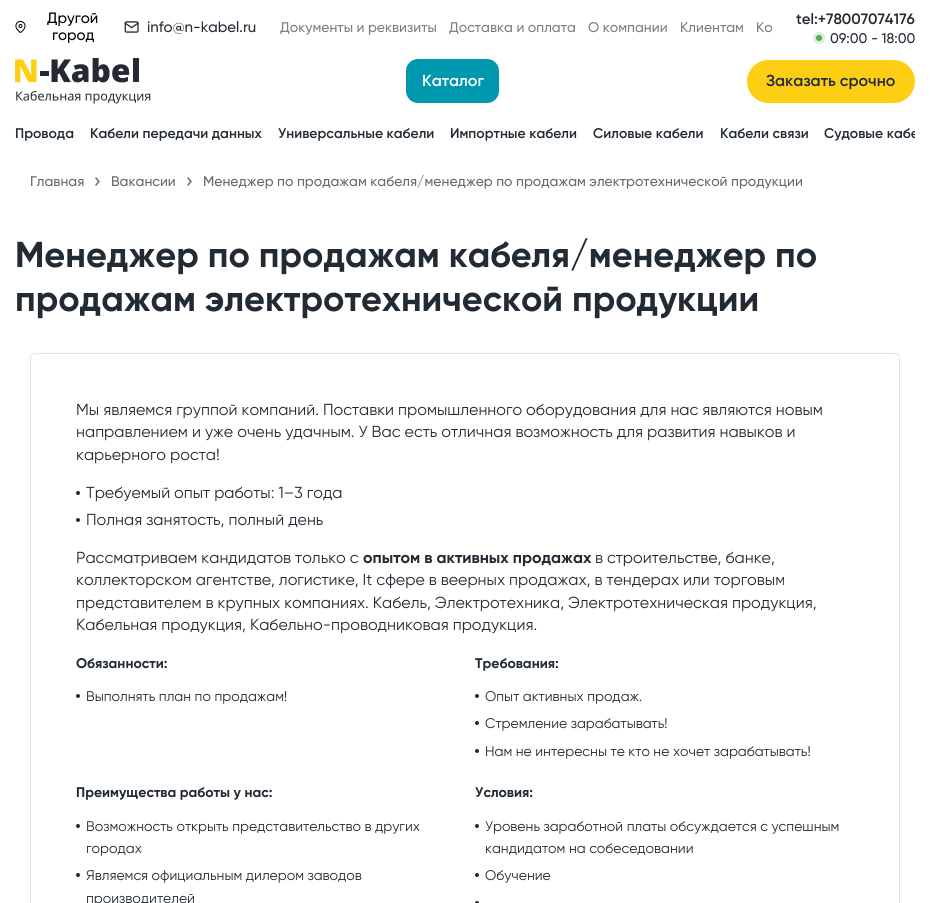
import math
import cairo

surface = cairo.ImageSurface(cairo.Format.RGB24, 930, 903)
ctx = cairo.Context(surface)
options = cairo.FontOptions()
options.set_hint_metrics(cairo.HintMetrics.OFF)
options.set_hint_style(cairo.HintStyle.NONE)
ctx.set_font_options(options)
ctx.set_miter_limit(4)


def ink(r, g, b):
    ctx.set_source_rgb(r / 255, g / 255, b / 255)


def write(x, y, s, family, size, color, bold=False, italic=False):
    ctx.select_font_face(family, cairo.FontSlant.ITALIC if italic else cairo.FontSlant.NORMAL, cairo.FontWeight.BOLD if bold else cairo.FontWeight.NORMAL)
    ctx.set_font_size(size)
    ink(*color)
    ctx.move_to(x, y)
    ctx.show_text(s)


def round_path(x, y, w, h, r):
    ctx.new_sub_path()
    for i, (u, v) in enumerate([(x + w - r, y + h - r), (x + r, y + h - r), (x + r, y + r), (x + w - r, y + r)]):
        ctx.arc(u, v, r, i * math.pi / 2, (i + 1) * math.pi / 2)
    ctx.close_path()


def paste(path, x, y, w, h):
    ctx.save()
    ctx.set_source_surface(cairo.ImageSurface.create_from_png(path), x, y)
    ctx.rectangle(x, y, w, h)
    ctx.fill()
    ctx.restore()


s1 = dict(family="Gilroy Medium", size=15, color=(0, 0, 0))
s2 = dict(family="Gilroy Medium", size=15, color=(34, 43, 52))
s3 = dict(family="Gilroy Medium", size=14, color=(122, 128, 133))
s4 = dict(family="Gilroy SemiBold", size=15, color=(34, 43, 52))
s5 = dict(family="Gilroy Medium", size=14, color=(34, 43, 52))
s6 = dict(family="Gilroy SemiBold", size=16, color=(255, 255, 255))
s7 = dict(family="Gilroy SemiBold", size=16, color=(34, 43, 52))
s8 = dict(family="Gilroy SemiBold", size=14, color=(34, 43, 52))
s9 = dict(family="Gilroy Medium", size=14, color=(100, 107, 113))
s10 = dict(family="Gilroy", size=36, color=(34, 43, 52), bold=True)
s11 = dict(family="Gilroy", size=16, color=(34, 43, 52))
s12 = dict(family="Gilroy", size=16, color=(34, 43, 52), bold=True)
s13 = dict(family="Gilroy", size=14, color=(34, 43, 52), bold=True)
s14 = dict(family="Gilroy", size=14, color=(34, 43, 52))

ink(255, 255, 255)
ctx.paint()
paste("pic1.png", 15, 21, 11, 12)
write(47, 23, "Другой", **s1)
write(52, 40, "город", **s1)
paste("pic2.png", 124, 21, 15, 12)
write(147, 32, "info@n-kabel.ru", **s2)
write(280, 32, "Документы и реквизиты", **s3)
write(449, 32, "Доставка и оплата", **s3)
write(588, 32, "О компании", **s3)
write(680, 32, "Клиентам", **s3)
write(756, 32, "Ко", **s3)
write(796, 24, "tel:+78007074176", **s4)
paste("pic3.png", 813, 32, 12, 12)
write(830, 43, "09:00 - 18:00", **s5)
paste("pic4.png", 15, 58, 136, 46)
ink(0, 152, 175)
round_path(406, 59, 93, 44, 12)
ctx.fill()
write(422, 86, "Каталог", **s6)
ink(254, 206, 21)
round_path(747, 60, 168, 43, 21.5)
ctx.fill()
write(766, 86, "Заказать срочно", **s7)
write(15, 138, "Провода", **s8)
write(90, 138, "Кабели передачи данных", **s8)
write(278, 138, "Универсальные кабели", **s8)
write(450, 138, "Импортные кабели", **s8)
write(593, 138, "Силовые кабели", **s8)
write(720, 138, "Кабели связи", **s8)
ctx.save()
ctx.rectangle(15, 124, 900, 20)
ctx.clip()
write(824, 138, "Судовые кабе", **s8)
ctx.restore()
write(30, 186, "Главная", **s9)
ctx.new_path()
ctx.move_to(96, 185)
ctx.line_to(99, 181.5)
ctx.line_to(96, 178)
ctx.set_line_width(1.5)
ctx.set_line_cap(cairo.LineCap.ROUND)
ctx.set_line_join(cairo.LineJoin.ROUND)
ctx.stroke()
write(111, 186, "Вакансии", **s9)
ctx.new_path()
ctx.move_to(188, 185)
ctx.line_to(191, 181.5)
ctx.line_to(188, 178)
ctx.stroke()
write(203, 186, "Менеджер по продажам кабеля/менеджер по продажам электротехнической продукции", **s9)
write(15, 267, "Менеджер по продажам кабеля/менеджер по", **s10)
write(15, 311, "продажам электротехнической продукции", **s10)
round_path(30.5, 353.5, 869, 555, 4.5)
ink(225, 225, 225)
ctx.set_line_width(1)
ctx.set_line_cap(cairo.LineCap.BUTT)
ctx.set_line_join(cairo.LineJoin.MITER)
ctx.stroke()
write(76, 415, "Мы являемся группой компаний. Поставки промышленного оборудования для нас являются новым", **s11)
write(76, 437, "направлением и уже очень удачным. У Вас есть отличная возможность для развития навыков и", **s11)
write(76, 460, "карьерного роста!", **s11)
ctx.new_path()
ctx.arc(78, 493, 2, 0, 2 * math.pi)
ctx.fill()
write(86, 498, "Требуемый опыт работы: 1–3 года", **s11)
ctx.new_path()
ctx.arc(78, 520, 2, 0, 2 * math.pi)
ctx.fill()
write(86, 525, "Полная занятость, полный день", **s11)
write(76, 563, "Рассматриваем кандидатов только с", **s11)
write(363, 563, "опытом в активных продажах", **s12)
write(595, 563, "в строительстве, банке,", **s11)
write(76, 585, "коллекторском агентстве, логистике, It сфере в веерных продажах, в тендерах или торговым", **s11)
write(76, 608, "представителем в крупных компаниях. Кабель, Электротехника, Электротехническая продукция,", **s11)
write(76, 630, "Кабельная продукция, Кабельно-проводниковая продукция.", **s11)
write(76, 668, "Обязанности:", **s13)
ctx.new_path()
ctx.arc(78, 696, 2, 0, 2 * math.pi)
ctx.fill()
write(86, 701, "Выполнять план по продажам!", **s14)
write(475, 668, "Требования:", **s13)
ctx.new_path()
ctx.arc(477, 696, 2, 0, 2 * math.pi)
ctx.fill()
write(485, 701, "Опыт активных продаж.", **s14)
ctx.new_path()
ctx.arc(477, 723, 2, 0, 2 * math.pi)
ctx.fill()
write(485, 728, "Стремление зарабатывать!", **s14)
ctx.new_path()
ctx.arc(477, 751, 2, 0, 2 * math.pi)
ctx.fill()
write(485, 756, "Нам не интересны те кто не хочет зарабатывать!", **s14)
write(76, 797, "Преимущества работы у нас:", **s13)
ctx.new_path()
ctx.arc(78, 826, 2, 0, 2 * math.pi)
ctx.fill()
write(86, 831, "Возможность открыть представительство в других", **s14)
write(86, 853, "городах", **s14)
ctx.new_path()
ctx.arc(78, 875, 2, 0, 2 * math.pi)
ctx.fill()
write(86, 880, "Являемся официальным дилером заводов", **s14)
write(86, 903, "производителей", **s14)
write(475, 797, "Условия:", **s13)
ctx.new_path()
ctx.arc(477, 826, 2, 0, 2 * math.pi)
ctx.fill()
write(485, 831, "Уровень заработной платы обсуждается с успешным", **s14)
write(485, 853, "кандидатом на собеседовании", **s14)
ctx.new_path()
ctx.arc(477, 875, 2, 0, 2 * math.pi)
ctx.fill()
write(485, 880, "Обучение", **s14)
ctx.new_path()
ctx.arc(477, 903, 2, 0, 2 * math.pi)
ctx.fill()
surface.write_to_png("screenshot.png")
